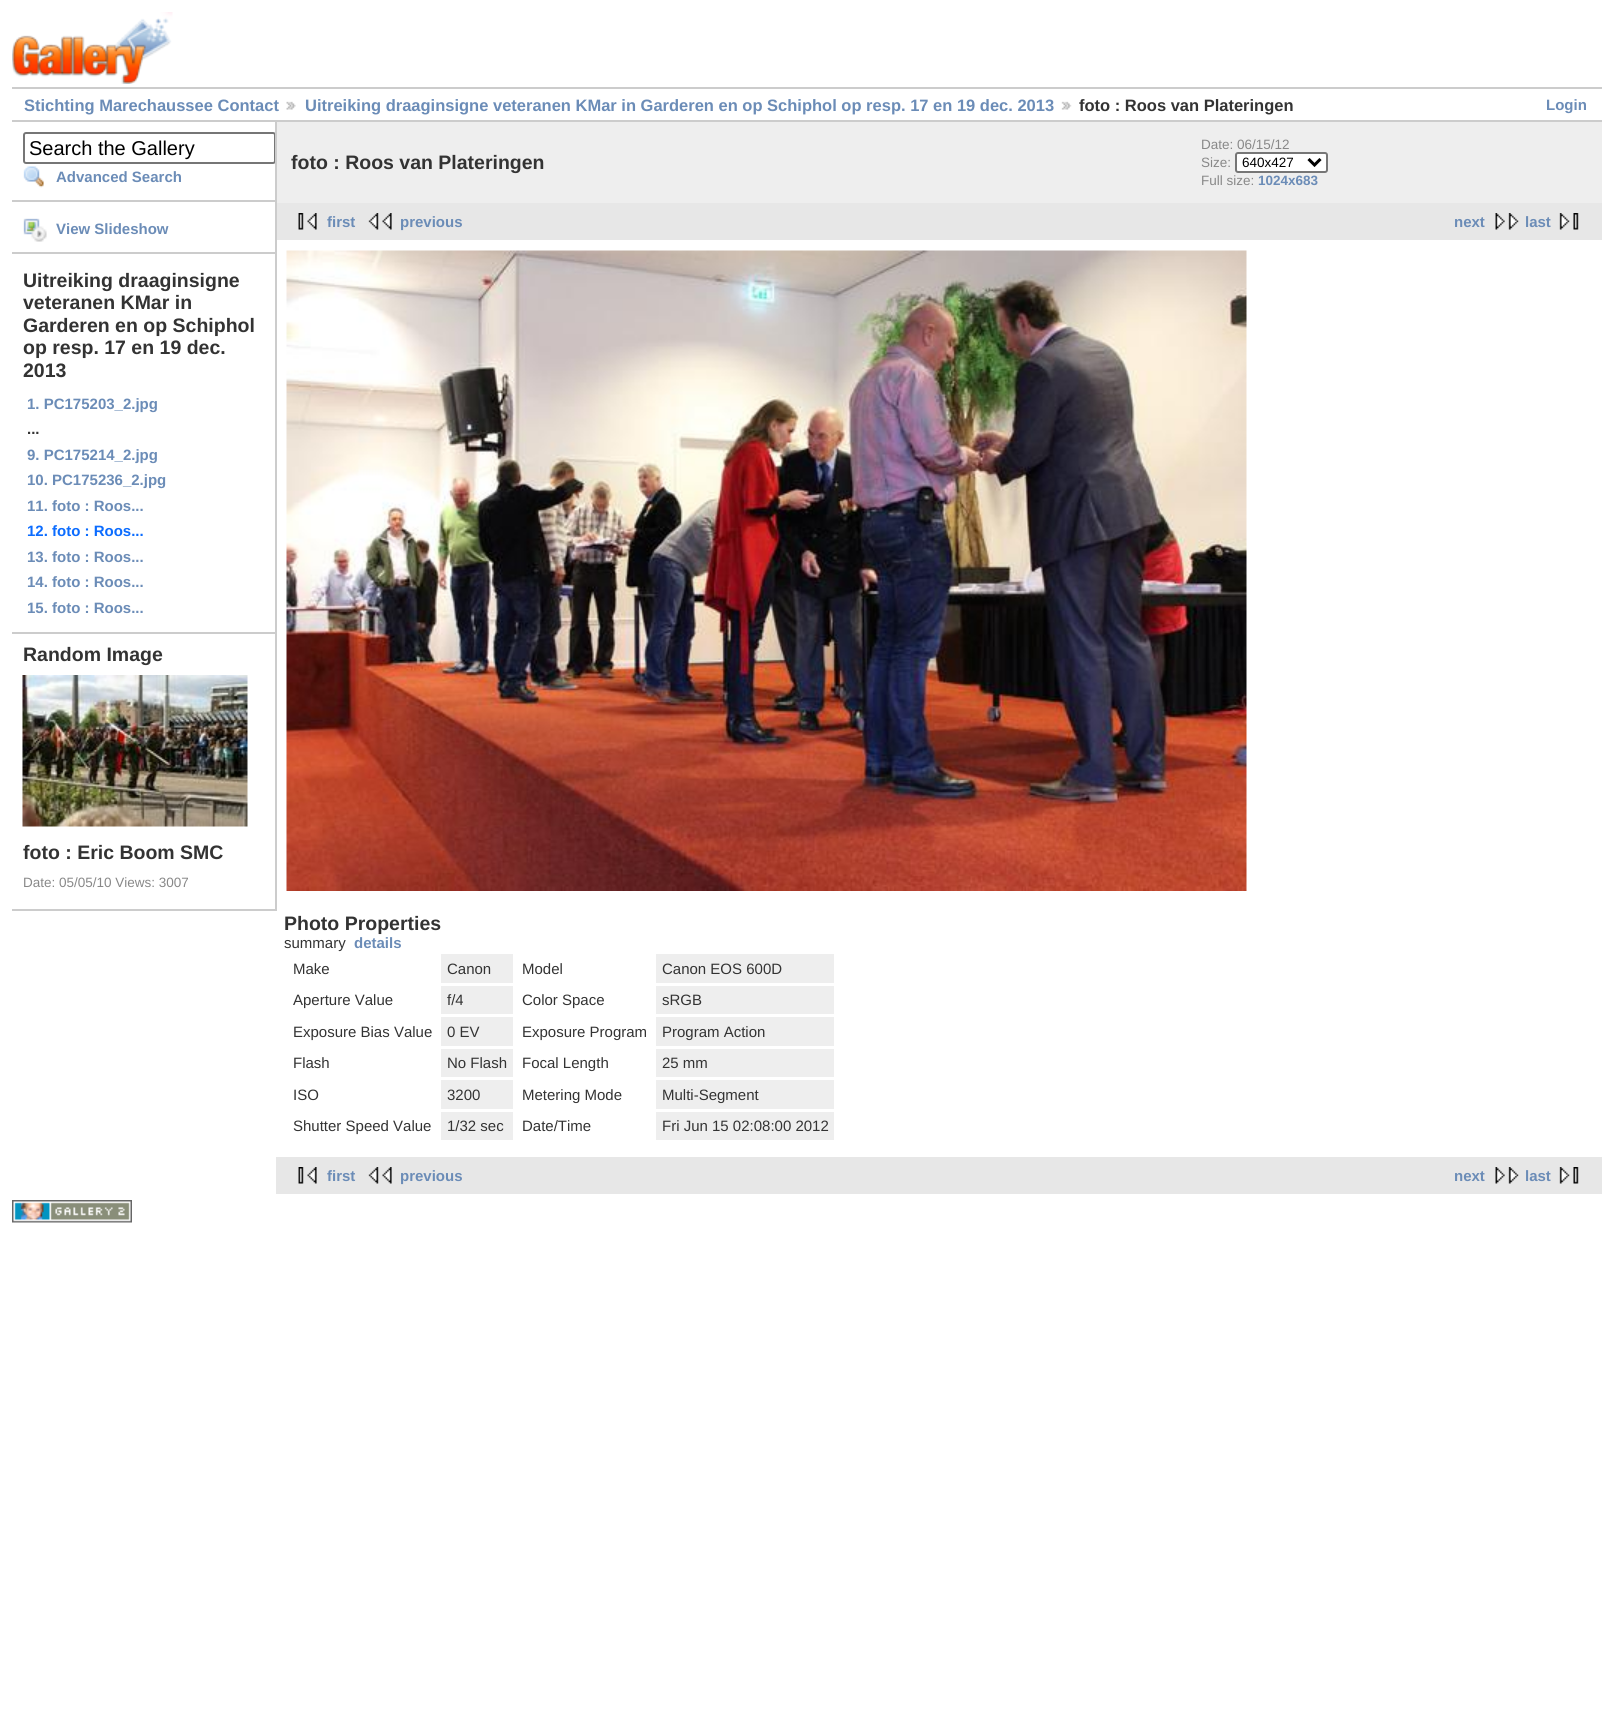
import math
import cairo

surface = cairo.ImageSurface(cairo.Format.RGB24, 1613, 1735)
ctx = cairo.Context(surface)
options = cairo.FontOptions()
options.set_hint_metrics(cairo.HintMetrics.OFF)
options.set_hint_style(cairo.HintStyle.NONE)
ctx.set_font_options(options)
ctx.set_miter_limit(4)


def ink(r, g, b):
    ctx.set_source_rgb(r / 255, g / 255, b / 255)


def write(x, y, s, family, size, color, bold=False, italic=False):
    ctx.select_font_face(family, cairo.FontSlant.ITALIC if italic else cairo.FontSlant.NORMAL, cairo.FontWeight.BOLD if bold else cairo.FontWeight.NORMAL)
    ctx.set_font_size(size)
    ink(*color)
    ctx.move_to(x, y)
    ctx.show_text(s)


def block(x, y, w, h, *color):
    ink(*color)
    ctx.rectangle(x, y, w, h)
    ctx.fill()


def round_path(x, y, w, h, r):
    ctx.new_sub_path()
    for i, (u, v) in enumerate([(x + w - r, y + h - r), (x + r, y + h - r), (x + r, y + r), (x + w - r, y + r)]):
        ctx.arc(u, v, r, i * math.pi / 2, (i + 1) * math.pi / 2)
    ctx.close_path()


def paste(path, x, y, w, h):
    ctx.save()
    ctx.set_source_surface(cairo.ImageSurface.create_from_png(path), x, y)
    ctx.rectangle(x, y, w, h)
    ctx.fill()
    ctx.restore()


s1 = dict(family="Liberation Sans", size=16.5, color=(107, 140, 183), bold=True)
s2 = dict(family="Liberation Sans", size=16.5, color=(51, 51, 51), bold=True)
s3 = dict(family="Liberation Sans", size=15, color=(107, 140, 183), bold=True)
s4 = dict(family="Liberation Sans", size=20, color=(0, 0, 0))
s5 = dict(family="Liberation Sans", size=19.5, color=(51, 51, 51), bold=True)
s6 = dict(family="Liberation Sans", size=15, color=(51, 51, 51), bold=True)
s7 = dict(family="Liberation Sans", size=15, color=(11, 108, 255), bold=True)
s8 = dict(family="Liberation Sans", size=13.5, color=(136, 136, 136))
s9 = dict(family="Liberation Sans", size=13.5, color=(0, 0, 0))
s10 = dict(family="Liberation Sans", size=13.5, color=(107, 140, 183), bold=True)
s11 = dict(family="Liberation Sans", size=15, color=(51, 51, 51))

ink(255, 255, 255)
ctx.paint()
paste("pic1.png", 12, 12, 161, 72)
block(12, 87, 1590, 2, 204, 204, 204)
block(12, 120, 1590, 2, 204, 204, 204)
write(24, 111, "Stichting Marechaussee Contact", **s1)
paste("pic2.png", 286, 101, 10, 9)
write(305, 111, "Uitreiking draaginsigne veteranen KMar in Garderen en op Schiphol op resp. 17 en 19 dec. 2013", **s1)
paste("pic3.png", 1061, 101, 11, 9)
write(1079, 111, "foto : Roos van Plateringen", **s2)
write(1546, 110, "Login", **s3)
block(275, 122, 2, 789, 204, 204, 204)
block(12, 200, 263, 2, 204, 204, 204)
ctx.save()
ctx.rectangle(12, 122, 263, 789)
ctx.clip()
round_path(24, 133, 251, 30, 2)
ink(118, 118, 118)
ctx.stroke()
ctx.restore()
write(29, 155, "Search the Gallery", **s4)
paste("pic4.png", 23, 166, 21, 22)
write(56, 182, "Advanced Search", **s3)
block(12, 252, 263, 2, 204, 204, 204)
paste("pic5.png", 23, 218, 24, 24)
write(56, 234, "View Slideshow", **s3)
block(12, 632, 263, 2, 204, 204, 204)
write(23, 287, "Uitreiking draaginsigne", **s5)
write(23, 309, "veteranen KMar in", **s5)
write(23, 332, "Garderen en op Schiphol", **s5)
write(23, 354, "op resp. 17 en 19 dec.", **s5)
write(23, 377, "2013", **s5)
write(27, 409, "1. PC175203_2.jpg", **s3)
write(27, 434, "...", **s6)
write(27, 460, "9. PC175214_2.jpg", **s3)
write(27, 485, "10. PC175236_2.jpg", **s3)
write(27, 511, "11. foto : Roos...", **s3)
write(27, 536, "12. foto : Roos...", **s7)
write(27, 562, "13. foto : Roos...", **s3)
write(27, 587, "14. foto : Roos...", **s3)
write(27, 613, "15. foto : Roos...", **s3)
block(12, 909, 263, 2, 204, 204, 204)
write(23, 661, "Random Image", **s5)
paste("pic6.png", 22, 675, 226, 152)
write(23, 859, "foto : Eric Boom SMC", **s5)
write(23, 887, "Date: 05/05/10 Views: 3007", **s8)
block(277, 122, 1325, 81, 238, 238, 238)
write(291, 169, "foto : Roos van Plateringen", **s5)
write(1201, 149, "Date: 06/15/12", **s8)
write(1201, 167, "Size:", **s8)
ink(255, 255, 255)
round_path(1236, 153, 91, 19, 2)
ctx.fill_preserve()
ink(118, 118, 118)
ctx.stroke()
ctx.new_path()
ctx.move_to(1308.5, 159)
ctx.line_to(1314.5, 165)
ctx.line_to(1320.5, 159)
ink(0, 0, 0)
ctx.set_line_width(3)
ctx.stroke()
write(1242, 167, "640x427", **s9)
write(1201, 185, "Full size:", **s8)
write(1258, 185, "1024x683", **s10)
block(277, 203, 1325, 37, 231, 231, 231)
paste("pic7.png", 298, 213, 19, 17)
write(327, 227, "first", **s3)
paste("pic8.png", 368, 213, 24, 17)
write(400, 227, "previous", **s3)
write(1454, 227, "next", **s3)
paste("pic9.png", 1495, 213, 24, 17)
write(1525, 227, "last", **s3)
paste("pic10.png", 1559, 213, 20, 17)
paste("pic11.png", 286, 250, 961, 641)
write(284, 930, "Photo Properties", **s5)
write(284, 948, "summary", **s11)
write(354, 948, "details", **s3)
write(293, 974, "Make", **s11)
block(441, 954, 72, 29, 238, 238, 238)
write(447, 974, "Canon", **s11)
write(522, 974, "Model", **s11)
block(656, 954, 178, 29, 238, 238, 238)
write(662, 974, "Canon EOS 600D", **s11)
write(293, 1005, "Aperture Value", **s11)
block(441, 986, 72, 28, 238, 238, 238)
write(447, 1005, "f/4", **s11)
write(522, 1005, "Color Space", **s11)
block(656, 986, 178, 28, 238, 238, 238)
write(662, 1005, "sRGB", **s11)
write(293, 1037, "Exposure Bias Value", **s11)
block(441, 1017, 72, 29, 238, 238, 238)
write(447, 1037, "0 EV", **s11)
write(522, 1037, "Exposure Program", **s11)
block(656, 1017, 178, 29, 238, 238, 238)
write(662, 1037, "Program Action", **s11)
write(293, 1068, "Flash", **s11)
block(441, 1049, 72, 28, 238, 238, 238)
write(447, 1068, "No Flash", **s11)
write(522, 1068, "Focal Length", **s11)
block(656, 1049, 178, 28, 238, 238, 238)
write(662, 1068, "25 mm", **s11)
write(293, 1100, "ISO", **s11)
block(441, 1080, 72, 29, 238, 238, 238)
write(447, 1100, "3200", **s11)
write(522, 1100, "Metering Mode", **s11)
block(656, 1080, 178, 29, 238, 238, 238)
write(662, 1100, "Multi-Segment", **s11)
write(293, 1131, "Shutter Speed Value", **s11)
block(441, 1112, 72, 28, 238, 238, 238)
write(447, 1131, "1/32 sec", **s11)
write(522, 1131, "Date/Time", **s11)
block(656, 1112, 178, 28, 238, 238, 238)
write(662, 1131, "Fri Jun 15 02:08:00 2012", **s11)
block(276, 1157, 1326, 37, 231, 231, 231)
paste("pic7.png", 298, 1167, 19, 17)
write(327, 1181, "first", **s3)
paste("pic8.png", 368, 1167, 24, 17)
write(400, 1181, "previous", **s3)
write(1454, 1181, "next", **s3)
paste("pic9.png", 1495, 1167, 24, 17)
write(1525, 1181, "last", **s3)
paste("pic10.png", 1559, 1167, 20, 17)
paste("pic12.png", 12, 1200, 120, 23)
surface.write_to_png("screenshot.png")
